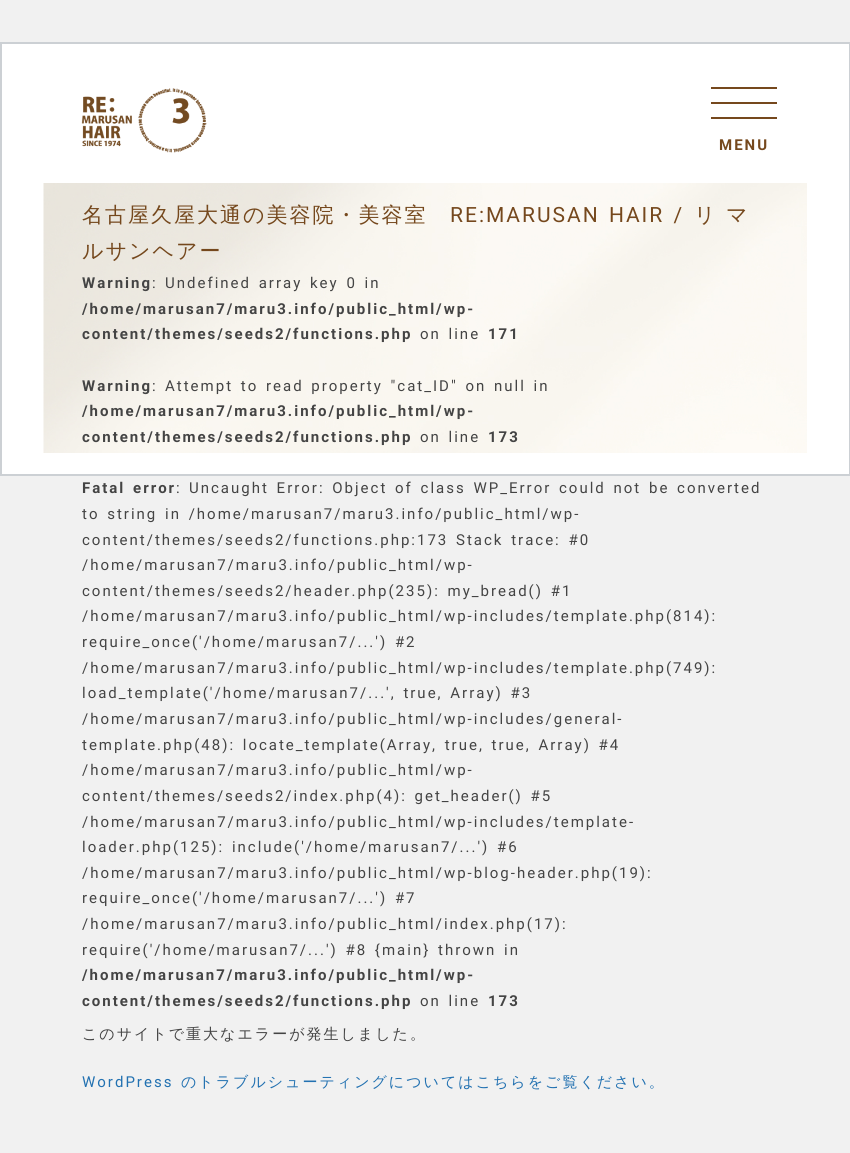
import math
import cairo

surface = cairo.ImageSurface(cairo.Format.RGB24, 850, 1153)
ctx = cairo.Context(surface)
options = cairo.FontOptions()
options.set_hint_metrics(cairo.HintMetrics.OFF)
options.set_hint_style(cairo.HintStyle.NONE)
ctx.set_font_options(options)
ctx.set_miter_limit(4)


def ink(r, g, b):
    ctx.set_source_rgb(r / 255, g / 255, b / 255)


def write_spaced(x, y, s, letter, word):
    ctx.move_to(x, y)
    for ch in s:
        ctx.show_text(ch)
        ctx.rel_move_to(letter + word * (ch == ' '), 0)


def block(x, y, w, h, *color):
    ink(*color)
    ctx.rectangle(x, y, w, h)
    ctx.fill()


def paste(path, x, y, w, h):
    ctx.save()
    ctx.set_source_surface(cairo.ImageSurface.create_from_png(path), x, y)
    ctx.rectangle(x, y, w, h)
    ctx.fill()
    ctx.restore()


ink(241, 241, 241)
ctx.paint()
ink(255, 255, 255)
ctx.rectangle(1, 43, 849, 432)
ctx.fill_preserve()
ink(204, 208, 212)
ctx.stroke()
paste("pic1.png", 81, 88, 126, 65)
block(711, 87, 66, 2, 117, 72, 29)
block(711, 102, 66, 2, 117, 72, 29)
block(711, 117, 66, 2, 117, 72, 29)
ctx.select_font_face("Roboto", cairo.FontSlant.NORMAL, cairo.FontWeight.BOLD)
ctx.set_font_size(15)
write_spaced(719, 150, "MENU", 2, 0)
paste("pic2.png", 43, 183, 764, 270)
ctx.select_font_face("WenQuanYi Zen Hei Medium")
ctx.set_font_size(21)
write_spaced(82, 222, "名古屋久屋大通の美容院・美容室", 2, 0)
ctx.select_font_face("Roboto")
write_spaced(450, 222, "RE:MARUSAN HAIR /", 2, 2)
ctx.select_font_face("WenQuanYi Zen Hei Medium")
write_spaced(694, 222, "リ", 2, 0)
write_spaced(726, 222, "マ", 2, 0)
write_spaced(82, 258, "ルサンヘアー", 2, 0)
ctx.select_font_face("Roboto", cairo.FontSlant.NORMAL, cairo.FontWeight.BOLD)
ctx.set_font_size(15)
ink(68, 68, 68)
write_spaced(82, 288, "Warning", 2, 0)
ctx.select_font_face("Roboto")
write_spaced(152, 288, ":", 2, 0)
write_spaced(165, 288, "Undefined array key 0 in", 2, 2)
ctx.select_font_face("Roboto", cairo.FontSlant.NORMAL, cairo.FontWeight.BOLD)
write_spaced(82, 314, "/home/marusan7/maru3.info/public_html/wp-", 2, 0)
write_spaced(82, 339, "content/themes/seeds2/functions.php", 2, 0)
ctx.select_font_face("Roboto")
write_spaced(420, 339, "on line", 2, 2)
ctx.select_font_face("Roboto", cairo.FontSlant.NORMAL, cairo.FontWeight.BOLD)
write_spaced(488, 339, "171", 2, 0)
write_spaced(82, 391, "Warning", 2, 0)
ctx.select_font_face("Roboto")
write_spaced(152, 391, ":", 2, 0)
write_spaced(165, 391, "Attempt to read property \"cat_ID\" on null in", 2, 2)
ctx.select_font_face("Roboto", cairo.FontSlant.NORMAL, cairo.FontWeight.BOLD)
write_spaced(82, 416, "/home/marusan7/maru3.info/public_html/wp-", 2, 0)
write_spaced(82, 442, "content/themes/seeds2/functions.php", 2, 0)
ctx.select_font_face("Roboto")
write_spaced(420, 442, "on line", 2, 2)
ctx.select_font_face("Roboto", cairo.FontSlant.NORMAL, cairo.FontWeight.BOLD)
write_spaced(488, 442, "173", 2, 0)
write_spaced(82, 493, "Fatal error", 2, 2)
ctx.select_font_face("Roboto")
write_spaced(176, 493, ":", 2, 0)
write_spaced(189, 493, "Uncaught Error: Object of class WP_Error could not be converted", 2, 2)
write_spaced(82, 519, "to string in /home/marusan7/maru3.info/public_html/wp-", 2, 2)
write_spaced(82, 545, "content/themes/seeds2/functions.php:173 Stack trace: #0", 2, 2)
write_spaced(82, 570, "/home/marusan7/maru3.info/public_html/wp-", 2, 0)
write_spaced(82, 596, "content/themes/seeds2/header.php(235): my_bread() #1", 2, 2)
write_spaced(82, 621, "/home/marusan7/maru3.info/public_html/wp-includes/template.php(814):", 2, 0)
write_spaced(82, 647, "require_once('/home/marusan7/...') #2", 2, 2)
write_spaced(82, 673, "/home/marusan7/maru3.info/public_html/wp-includes/template.php(749):", 2, 0)
write_spaced(82, 698, "load_template('/home/marusan7/...', true, Array) #3", 2, 2)
write_spaced(82, 724, "/home/marusan7/maru3.info/public_html/wp-includes/general-", 2, 0)
write_spaced(82, 750, "template.php(48): locate_template(Array, true, true, Array) #4", 2, 2)
write_spaced(82, 775, "/home/marusan7/maru3.info/public_html/wp-", 2, 0)
write_spaced(82, 801, "content/themes/seeds2/index.php(4): get_header() #5", 2, 2)
write_spaced(82, 827, "/home/marusan7/maru3.info/public_html/wp-includes/template-", 2, 0)
write_spaced(82, 852, "loader.php(125): include('/home/marusan7/...') #6", 2, 2)
write_spaced(82, 878, "/home/marusan7/maru3.info/public_html/wp-blog-header.php(19):", 2, 0)
write_spaced(82, 903, "require_once('/home/marusan7/...') #7", 2, 2)
write_spaced(82, 929, "/home/marusan7/maru3.info/public_html/index.php(17):", 2, 0)
write_spaced(82, 955, "require('/home/marusan7/...') #8 {main}", 2, 2)
write_spaced(438, 955, "thrown in", 2, 2)
ctx.select_font_face("Roboto", cairo.FontSlant.NORMAL, cairo.FontWeight.BOLD)
write_spaced(82, 980, "/home/marusan7/maru3.info/public_html/wp-", 2, 0)
write_spaced(82, 1006, "content/themes/seeds2/functions.php", 2, 0)
ctx.select_font_face("Roboto")
write_spaced(420, 1006, "on line", 2, 2)
ctx.select_font_face("Roboto", cairo.FontSlant.NORMAL, cairo.FontWeight.BOLD)
write_spaced(488, 1006, "173", 2, 0)
ctx.select_font_face("WenQuanYi Zen Hei Medium")
write_spaced(82, 1039, "このサイトで重大なエラーが発生しました。", 2, 0)
ctx.select_font_face("Roboto")
ink(34, 113, 177)
write_spaced(82, 1087, "WordPress", 2, 0)
ctx.select_font_face("WenQuanYi Zen Hei Medium")
write_spaced(181, 1087, "のトラブルシューティングについてはこちらをご覧ください。", 2, 0)
surface.write_to_png("screenshot.png")
